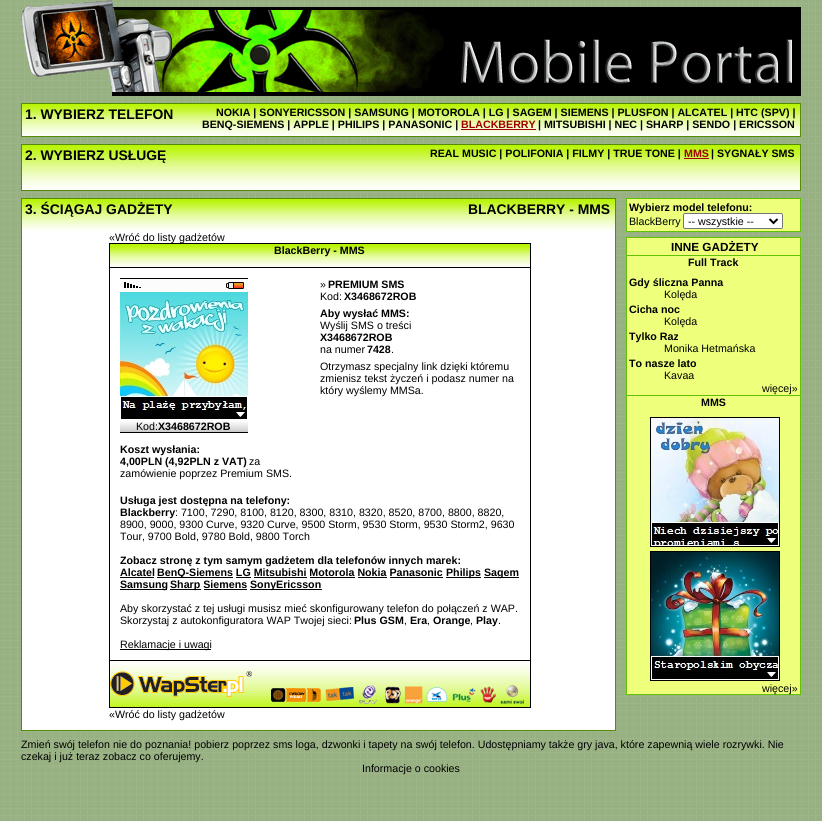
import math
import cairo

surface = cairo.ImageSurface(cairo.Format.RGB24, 822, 821)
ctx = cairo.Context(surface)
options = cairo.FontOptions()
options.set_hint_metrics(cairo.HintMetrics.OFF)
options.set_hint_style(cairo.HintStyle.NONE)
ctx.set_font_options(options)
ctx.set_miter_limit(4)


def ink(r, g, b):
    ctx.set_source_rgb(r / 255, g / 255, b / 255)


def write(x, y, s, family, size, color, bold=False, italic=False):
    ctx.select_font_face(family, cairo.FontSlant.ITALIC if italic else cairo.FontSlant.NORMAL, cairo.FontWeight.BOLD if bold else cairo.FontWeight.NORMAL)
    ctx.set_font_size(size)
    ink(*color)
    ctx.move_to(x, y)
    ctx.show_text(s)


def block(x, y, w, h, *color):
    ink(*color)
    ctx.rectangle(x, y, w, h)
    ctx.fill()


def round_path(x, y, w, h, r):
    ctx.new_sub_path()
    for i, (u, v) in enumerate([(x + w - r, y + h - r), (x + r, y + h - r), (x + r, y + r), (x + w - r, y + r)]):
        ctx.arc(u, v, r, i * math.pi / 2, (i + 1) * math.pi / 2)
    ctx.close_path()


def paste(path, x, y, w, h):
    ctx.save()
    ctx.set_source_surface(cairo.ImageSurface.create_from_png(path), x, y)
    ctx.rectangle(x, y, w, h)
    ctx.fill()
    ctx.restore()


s1 = dict(family="Liberation Sans", size=13.9, color=(0, 0, 0), bold=True)
s2 = dict(family="Liberation Sans", size=10.67, color=(0, 0, 0), bold=True)
s3 = dict(family="Liberation Sans", size=10.67, color=(158, 0, 0), bold=True)
s4 = dict(family="Liberation Sans", size=10.67, color=(0, 0, 0))
s5 = dict(family="Liberation Sans", size=11.75, color=(0, 0, 0), bold=True)

ink(255, 255, 255)
ctx.paint()
paste("pic1.png", 0, 0, 822, 821)
paste("pic2.png", 21, 0, 780, 96)
paste("pic3.png", 22, 104, 778, 32)
ctx.rectangle(21.5, 103.5, 779, 33)
ink(82, 140, 8)
ctx.set_line_width(1)
ctx.stroke()
write(25, 119, "1. WYBIERZ TELEFON", **s1)
write(216, 116, "NOKIA | SONYERICSSON | SAMSUNG | MOTOROLA | LG | SAGEM | SIEMENS | PLUSFON | ALCATEL | HTC (SPV) |", **s2)
write(202, 128, "BENQ-SIEMENS | APPLE | PHILIPS | PANASONIC |", **s2)
write(461, 128, "BLACKBERRY", **s3)
block(461, 129, 75, 1, 158, 0, 0)
write(538, 128, "| MITSUBISHI | NEC | SHARP | SENDO | ERICSSON", **s2)
block(22, 189, 778, 1, 255, 255, 255)
paste("pic4.png", 22, 145, 778, 44)
ctx.rectangle(21.5, 144.5, 779, 46)
ink(82, 140, 8)
ctx.stroke()
write(25, 160, "2. WYBIERZ USŁUGĘ", **s1)
write(430, 157, "REAL MUSIC | POLIFONIA | FILMY | TRUE TONE |", **s2)
write(684, 157, "MMS", **s3)
block(684, 158, 25, 1, 158, 0, 0)
write(711, 157, "| SYGNAŁY SMS", **s2)
block(22, 231, 593, 499, 255, 255, 255)
paste("pic5.png", 22, 199, 593, 32)
ctx.rectangle(21.5, 198.5, 594, 532)
ink(82, 140, 8)
ctx.stroke()
write(25, 214, "3. ŚCIĄGAJ GADŻETY", **s1)
write(468, 214, "BLACKBERRY - MMS", **s1)
ctx.rectangle(109.5, 243.5, 421, 464)
ctx.stroke()
write(109, 241, "«Wróć do listy gadżetów", **s4)
paste("pic6.png", 110, 244, 420, 24)
write(274, 254, "BlackBerry - MMS", **s2)
write(320, 288, "»", **s4)
write(328, 288, "PREMIUM SMS", **s2)
write(320, 300, "Kod:", **s4)
write(344, 300, "X3468672ROB", **s2)
write(320, 317, "Aby wysłać MMS:", **s2)
write(320, 329, "Wyślij SMS o treści", **s4)
write(320, 341, "X3468672ROB", **s2)
write(320, 353, "na numer", **s4)
write(367, 353, "7428", **s2)
write(391, 353, ".", **s4)
write(320, 370, "Otrzymasz specjalny link dzięki któremu", **s4)
write(320, 382, "zmienisz tekst życzeń i podasz numer na", **s4)
write(320, 394, "który wyślemy MMSa.", **s4)
block(120, 278, 128, 1, 0, 0, 0)
block(120, 432, 128, 1, 0, 0, 0)
block(120, 279, 128, 13, 252, 252, 252)
paste("pic7.png", 124, 282, 17, 6)
paste("pic8.png", 226, 282, 18, 7)
paste("pic9.png", 120, 292, 128, 128)
block(120, 420, 128, 2, 252, 252, 252)
paste("pic10.png", 120, 422, 128, 10)
write(136, 430, "Kod:", **s4)
write(158, 430, "X3468672ROB", **s2)
write(120, 453, "Koszt wysłania:", **s2)
write(120, 465, "4,00PLN (4,92PLN z VAT)", **s2)
write(249, 465, "za", **s4)
write(120, 477, "zamówienie poprzez Premium SMS.", **s4)
write(120, 504, "Usługa jest dostępna na telefony:", **s2)
write(120, 516, "Blackberry", **s2)
write(175, 516, ": 7100, 7290, 8100, 8120, 8300, 8310, 8320, 8520, 8700, 8800, 8820,", **s4)
write(120, 528, "8900, 9000, 9300 Curve, 9320 Curve, 9500 Storm, 9530 Storm, 9530 Storm2, 9630", **s4)
write(120, 540, "Tour, 9700 Bold, 9780 Bold, 9800 Torch", **s4)
write(120, 564, "Zobacz stronę z tym samym gadżetem dla telefonów innych marek:", **s2)
write(120, 576, "Alcatel", **s2)
block(120, 577, 34, 1, 0, 0, 0)
block(157, 577, 76, 1, 0, 0, 0)
write(157, 576, "BenQ-Siemens LG Mitsubishi Motorola Nokia Panasonic", **s2)
block(236, 577, 15, 1, 0, 0, 0)
block(254, 577, 53, 1, 0, 0, 0)
block(310, 577, 45, 1, 0, 0, 0)
block(358, 577, 29, 1, 0, 0, 0)
block(390, 577, 53, 1, 0, 0, 0)
block(446, 577, 35, 1, 0, 0, 0)
write(446, 576, "Philips", **s2)
block(484, 577, 35, 1, 0, 0, 0)
write(484, 576, "Sagem", **s2)
block(120, 589, 47, 1, 0, 0, 0)
write(120, 588, "Samsung", **s2)
block(170, 589, 31, 1, 0, 0, 0)
write(170, 588, "Sharp Siemens", **s2)
block(204, 589, 43, 1, 0, 0, 0)
block(250, 589, 72, 1, 0, 0, 0)
write(250, 588, "SonyEricsson", **s2)
write(120, 612, "Aby skorzystać z tej usługi musisz mieć skonfigurowany telefon do połączeń z WAP.", **s4)
write(120, 624, "Skorzystaj z autokonfiguratora WAP Twojej sieci:", **s4)
write(354, 624, "Plus GSM", **s2)
write(404, 624, ",", **s4)
write(410, 624, "Era", **s2)
write(427, 624, ",", **s4)
write(433, 624, "Orange", **s2)
write(470, 624, ",", **s4)
write(476, 624, "Play", **s2)
write(498, 624, ".", **s4)
block(120, 649, 91, 1, 0, 0, 0)
write(120, 648, "Reklamacje i uwagi", **s4)
paste("pic11.png", 110, 660, 420, 47)
paste("pic12.png", 110, 671, 142, 26)
paste("pic13.png", 271, 685, 253, 19)
write(109, 718, "«Wróć do listy gadżetów", **s4)
ink(238, 255, 123)
ctx.rectangle(626.5, 198.5, 174, 33)
ctx.fill_preserve()
ink(98, 194, 1)
ctx.stroke()
write(629, 211, "Wybierz model telefonu:", **s2)
write(629, 225, "BlackBerry", **s4)
ink(255, 255, 255)
round_path(683.5, 213.5, 99, 15, 1.5)
ctx.fill_preserve()
ink(118, 118, 118)
ctx.stroke()
ctx.new_path()
ctx.move_to(769.5, 219)
ctx.line_to(773.5, 223)
ctx.line_to(777.5, 219)
ink(0, 0, 0)
ctx.set_line_width(2)
ctx.stroke()
write(688, 225, "-- wszystkie --", **s4)
ink(238, 255, 123)
ctx.rectangle(626.5, 237.5, 174, 457)
ctx.fill_preserve()
ink(98, 194, 1)
ctx.set_line_width(1)
ctx.stroke()
write(671, 251, "INNE GADŻETY", **s5)
block(627, 255, 173, 1, 98, 194, 1)
write(688, 266, "Full Track", **s2)
write(629, 286, "Gdy śliczna Panna", **s2)
write(664, 298, "Kolęda", **s4)
write(629, 313, "Cicha noc", **s2)
write(664, 325, "Kolęda", **s4)
write(629, 340, "Tylko Raz", **s2)
write(664, 352, "Monika Hetmańska", **s4)
write(629, 367, "To nasze lato", **s2)
write(664, 379, "Kavaa", **s4)
write(762, 392, "więcej»", **s4)
block(627, 395, 173, 1, 98, 194, 1)
write(701, 406, "MMS", **s2)
ctx.rectangle(650.5, 417.5, 129, 129)
ctx.stroke()
paste("pic14.png", 651, 418, 128, 128)
ctx.rectangle(650.5, 551.5, 129, 129)
ctx.stroke()
paste("pic15.png", 651, 552, 128, 128)
write(762, 692, "więcej»", **s4)
write(21, 748, "Zmień swój telefon nie do poznania! pobierz poprzez sms loga, dzwonki i tapety na swój telefon. Udostępniamy także gry java, które zapewnią wiele rozrywki. Nie", **s4)
write(21, 760, "czekaj i już teraz zobacz co oferujemy.", **s4)
write(362, 772, "Informacje o cookies", **s4)
surface.write_to_png("screenshot.png")
